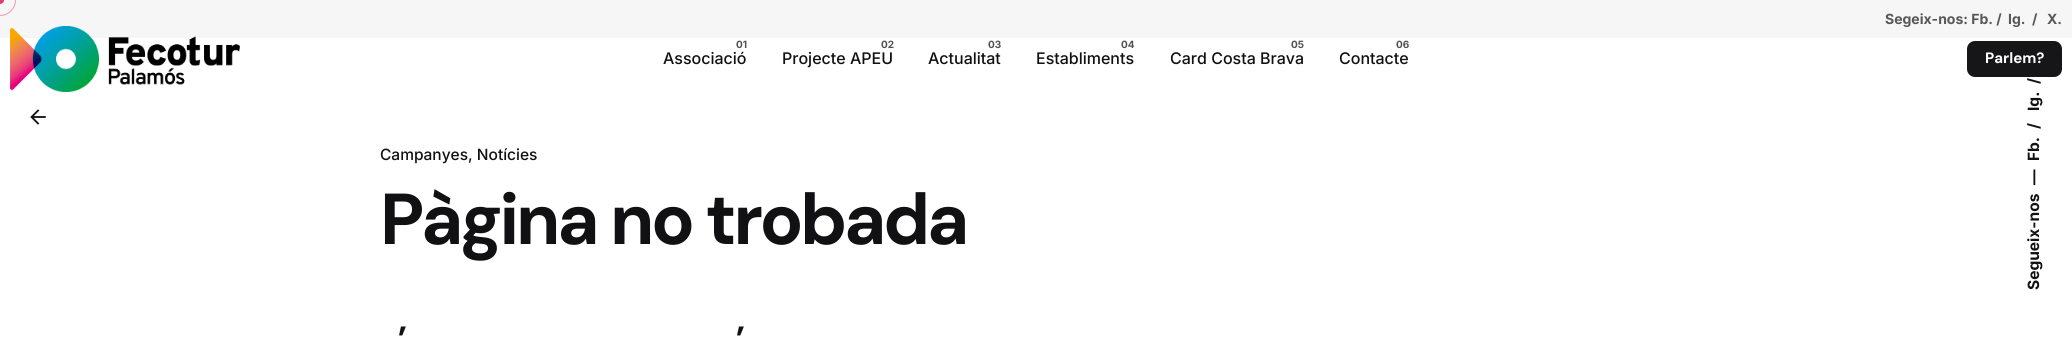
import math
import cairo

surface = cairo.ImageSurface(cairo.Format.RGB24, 2072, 339)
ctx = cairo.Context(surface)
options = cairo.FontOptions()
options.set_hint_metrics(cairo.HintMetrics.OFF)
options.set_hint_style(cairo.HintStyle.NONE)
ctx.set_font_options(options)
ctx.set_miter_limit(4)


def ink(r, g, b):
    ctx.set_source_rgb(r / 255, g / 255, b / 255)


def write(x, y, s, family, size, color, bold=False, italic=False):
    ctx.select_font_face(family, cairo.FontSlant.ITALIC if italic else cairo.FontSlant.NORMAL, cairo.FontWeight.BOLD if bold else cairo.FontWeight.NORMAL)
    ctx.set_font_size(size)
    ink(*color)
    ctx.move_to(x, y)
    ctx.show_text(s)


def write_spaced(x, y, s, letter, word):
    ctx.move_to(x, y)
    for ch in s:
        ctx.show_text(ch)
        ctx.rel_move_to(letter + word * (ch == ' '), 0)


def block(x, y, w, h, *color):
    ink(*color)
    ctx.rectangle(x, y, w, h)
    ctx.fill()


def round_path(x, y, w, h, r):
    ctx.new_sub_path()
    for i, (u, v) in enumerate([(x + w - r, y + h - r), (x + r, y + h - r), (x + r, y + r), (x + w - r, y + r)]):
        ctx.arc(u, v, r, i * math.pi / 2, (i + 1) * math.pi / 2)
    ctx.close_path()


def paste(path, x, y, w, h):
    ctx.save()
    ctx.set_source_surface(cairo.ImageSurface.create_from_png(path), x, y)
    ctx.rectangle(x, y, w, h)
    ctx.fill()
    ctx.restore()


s1 = dict(family="Inter", size=14, color=(87, 86, 88), bold=True)
s2 = dict(family="Inter", size=10, color=(80, 80, 82), bold=True)
s3 = dict(family="Inter Medium", size=16, color=(17, 16, 19))
s4 = dict(family="DM Sans", size=15, color=(255, 255, 255), bold=True)
s5 = dict(family="Inter Medium", size=15.5, color=(17, 16, 19))
s6 = dict(family="Inter", size=15.5, color=(17, 16, 19), bold=True)

ink(255, 255, 255)
ctx.paint()
block(0, 0, 2072, 38, 246, 246, 246)
ctx.arc(0, 0, 15.5, 0, 2 * math.pi)
ink(238, 152, 183)
ctx.set_line_width(1)
ctx.stroke()
ink(230, 58, 119)
ctx.arc(0, 0, 4, 0, 2 * math.pi)
ctx.fill()
write(1885, 24, "Segeix-nos: Fb. /", **s1)
write(2008, 24, "Ig.", **s1)
write(2032, 24, "/", **s1)
write(2047, 24, "X.", **s1)
paste("pic1.png", 10, 26, 230, 66)
write(736, 48, "01", **s2)
write(663, 64, "Associació", **s3)
write(881, 48, "02", **s2)
write(782, 64, "Projecte APEU", **s3)
write(988, 48, "03", **s2)
write(928, 64, "Actualitat", **s3)
write(1121, 48, "04", **s2)
write(1036, 64, "Establiments", **s3)
write(1291, 48, "05", **s2)
write(1170, 64, "Card Costa Brava", **s3)
write(1396, 48, "06", **s2)
write(1339, 64, "Contacte", **s3)
ink(22, 21, 24)
round_path(1967, 41, 95, 36, 8)
ctx.fill()
write(1985, 63, "Parlem?", **s4)
paste("pic2.png", 30, 109, 16, 16)
write(380, 160, "Campanyes, Notícies", **s5)
ctx.select_font_face("DM Sans", cairo.FontSlant.NORMAL, cairo.FontWeight.BOLD)
ctx.set_font_size(72)
write_spaced(380, 244, "Pàgina no trobada", -3.25, 0)
ctx.set_font_size(35)
write_spaced(398, 351, "’", -1, 0)
write_spaced(736, 351, "’", -1, 0)
ctx.save()
ctx.translate(2039, 84)
ctx.rotate(-90 * math.pi / 180)
write(0, 0, "/", **s6)
ctx.restore()
ctx.save()
ctx.translate(2039, 111)
ctx.rotate(-90 * math.pi / 180)
write(0, 0, "Ig.", **s6)
ctx.restore()
ctx.save()
ctx.translate(2039, 129)
ctx.rotate(-90 * math.pi / 180)
write(0, 0, "/", **s6)
ctx.restore()
ctx.save()
ctx.translate(2039, 161)
ctx.rotate(-90 * math.pi / 180)
write(0, 0, "Fb.", **s6)
ctx.restore()
ctx.save()
ctx.translate(2039, 185)
ctx.rotate(-90 * math.pi / 180)
write(0, 0, "—", **s6)
ctx.restore()
ctx.save()
ctx.translate(2039, 290)
ctx.rotate(-90 * math.pi / 180)
write(0, 0, "Segueix-nos", **s6)
ctx.restore()
surface.write_to_png("screenshot.png")
